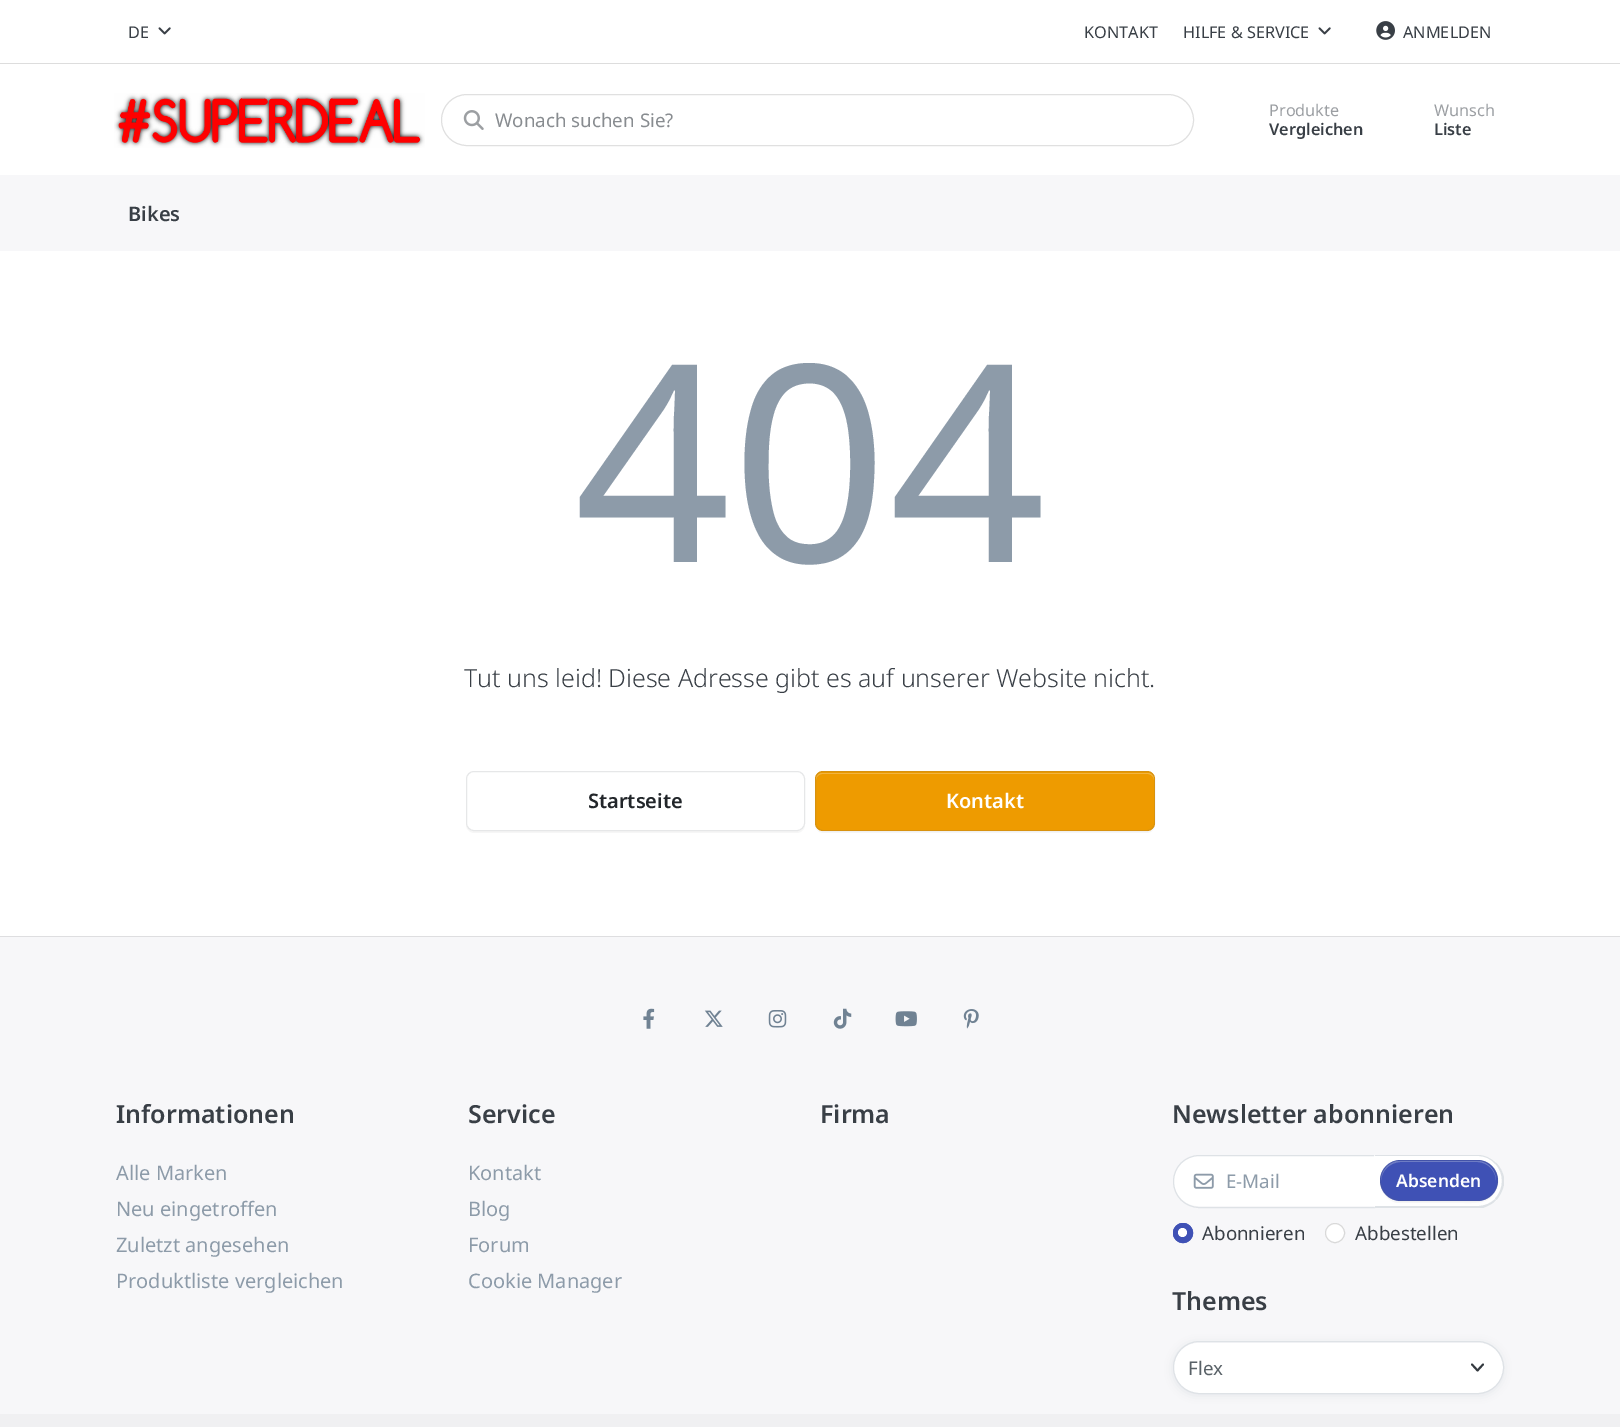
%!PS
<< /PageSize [1620 1427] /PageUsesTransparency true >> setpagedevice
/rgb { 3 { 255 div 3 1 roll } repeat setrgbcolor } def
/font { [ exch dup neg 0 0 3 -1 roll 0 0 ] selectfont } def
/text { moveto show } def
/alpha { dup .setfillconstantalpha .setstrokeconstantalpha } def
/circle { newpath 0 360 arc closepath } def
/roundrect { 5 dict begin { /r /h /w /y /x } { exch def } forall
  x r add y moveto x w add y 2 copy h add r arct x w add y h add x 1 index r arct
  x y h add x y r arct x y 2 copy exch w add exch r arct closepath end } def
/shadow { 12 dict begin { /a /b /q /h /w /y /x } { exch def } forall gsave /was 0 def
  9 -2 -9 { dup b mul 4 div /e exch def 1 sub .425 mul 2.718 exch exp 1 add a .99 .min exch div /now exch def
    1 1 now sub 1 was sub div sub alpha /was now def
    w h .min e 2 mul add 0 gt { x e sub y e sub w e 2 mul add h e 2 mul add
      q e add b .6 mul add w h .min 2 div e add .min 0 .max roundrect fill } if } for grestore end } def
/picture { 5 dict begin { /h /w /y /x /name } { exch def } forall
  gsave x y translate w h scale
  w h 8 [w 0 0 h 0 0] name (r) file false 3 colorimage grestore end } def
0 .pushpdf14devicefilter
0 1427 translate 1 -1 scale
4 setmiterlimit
255 255 255 rgb
0 0 1620 1427 rectfill
221 221 221 rgb
0 63 1620 1 rectfill
(img_01.rgb) 158 27 13 8 picture
(img_01.rgb) 1318 27 13 8 picture
(img_02.rgb) 1376 21 19 19 picture
(img_03.rgb) 114 93 311 55 picture
224 224 224 rgb
441.5 94.5 752 51 25.5 roundrect stroke
(img_04.rgb) 463 110 21 20 picture
247 247 249 rgb
0 175 1620 76 rectfill
246 246 246 rgb
466 779 moveto 0 46 rlineto 0 4 4 8 8 8 rcurveto 323 0 rlineto 4 0 8 -4 8 -8 rcurveto 0 -1 rlineto 0 4 -3 7 -7 7 rcurveto -324 0 rlineto -4 0 -8 -3 -8 -7 rcurveto closepath fill
230 231 232 rgb
466.5 771.5 338 59 7.5 roundrect stroke
246 246 246 rgb
815 824 moveto 0 1 rlineto 0 4 4 8 8 8 rcurveto 324 0 rlineto 4 0 8 -4 8 -8 rcurveto 0 -1 rlineto 0 4 -3 7 -7 7 rcurveto -326 0 rlineto -4 0 -7 -3 -7 -7 rcurveto closepath fill
238 155 0 rgb
815 771 340 60 8 roundrect fill
242 180 64 rgb
822 774 moveto 326 0 rlineto 3 0 6 3 6 6 rcurveto 0 -1 rlineto 0 -3 -3 -6 -6 -6 rcurveto -326 0 rlineto -3 0 -6 3 -6 6 rcurveto 0 1 rlineto 0 -3 3 -6 6 -6 rcurveto closepath fill
0.15 alpha
89 97 103 rgb
815.5 771.5 339 59 7.5 roundrect stroke
1 alpha
247 247 249 rgb
0 937 1620 477 rectfill
222 222 224 rgb
0 936 1620 1 rectfill
(img_05.rgb) 643 1008 12 21 picture
(img_06.rgb) 704 1010 19 17 picture
(img_07.rgb) 768 1010 19 18 picture
(img_08.rgb) 833 1008 19 21 picture
(img_09.rgb) 895 1011 22 16 picture
(img_10.rgb) 963 1009 16 20 picture
255 255 255 rgb
1199 1156 moveto 175 0 rlineto 0 50 rlineto -175 0 rlineto -14 0 -25 -11 -25 -25 rcurveto 0 -14 11 -25 25 -25 rcurveto closepath fill
222 226 230 rgb
1199.5 1155.5 moveto 175 0 rlineto 0 52 rlineto -175 0 rlineto -14.5 0 -26 -11.5 -26 -26 rcurveto 0 -14.5 11.5 -26 26 -26 rcurveto closepath stroke
(img_11.rgb) 1193 1173 21 16 picture
255 255 255 rgb
1374 1155 moveto 103.5 0 rlineto 14.5 0 26.5 12 26.5 26.5 rcurveto 0 14.5 -12 26.5 -26.5 26.5 rcurveto -103.5 0 rlineto closepath fill
222 226 230 rgb
1374 1155 moveto 1 1 rlineto 103 0 rlineto 7 0 13 3 17 8 rcurveto 1 -1 rlineto -5 -5 -11 -8 -18 -8 rcurveto closepath fill
1504 1184.5 moveto -1 6 -4 11.5 -7.5 15.5 rcurveto -1.5 -1.5 rlineto 9 -9.5 9.5 -25 0 -35 rcurveto 1 -1 rlineto 4 4 7 9.5 8 15 rcurveto closepath fill
1374 1208 moveto 1 -2 rlineto 103 0 rlineto 7 0 13 -3 17 -7 rcurveto 1 1 rlineto -3 4 -8 6 -13 8 rcurveto closepath fill
255 255 255 rgb
1374 1155 moveto 0 52 rlineto 1 -1 rlineto 0 -50 rlineto closepath fill
246 246 246 rgb
1380 1181 moveto 0 10 7 20 17 22 rcurveto 67 0 rlineto 13 0 26 1 32 -13 rcurveto 3 -5 3 -11 0 -16 rcurveto 1 2 2 4 2 7 rcurveto 0 11 -10 20 -21 20 rcurveto -76 0 rlineto -12 0 -21 -9 -21 -20 rcurveto closepath fill
63 81 181 rgb
1380 1160 118 41 20.5 roundrect fill
111 125 200 rgb
1401 1162 moveto 76 0 rlineto 11 0 19 9 19 19 rcurveto 0 -9 -6 -18 -16 -20 rcurveto -16 0 rlineto -67 0 rlineto -10 2 -16 11 -16 20 rcurveto 0 -10 9 -19 20 -19 rcurveto closepath fill
0.15 alpha
89 97 103 rgb
1380.5 1160.5 117 40 20 roundrect stroke
1 alpha
63 81 181 rgb
1183 1233 10 circle fill
255 255 255 rgb
1182.5 1232.5 4.5 circle fill
63 81 181 rgb
1183 1233 9.5 circle stroke
255 255 255 rgb
1335 1233 10 circle fill
0.15 alpha
0 0 0 rgb
1335 1233 9.5 circle stroke
gsave
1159 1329 moveto 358 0 rlineto 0 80 rlineto -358 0 rlineto closepath 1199.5 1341 moveto 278 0 rlineto 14.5 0 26.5 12 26.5 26.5 rcurveto 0 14.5 -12 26.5 -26.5 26.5 rcurveto -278 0 rlineto -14.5 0 -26.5 -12 -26.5 -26.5 rcurveto 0 -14.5 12 -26.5 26.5 -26.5 rcurveto closepath eoclip newpath
1 alpha
26 33 75 rgb
1175 1345 326 48 24 5 0.12 shadow
grestore
1 alpha
255 255 255 rgb
1174 1343 329 50 25 roundrect fill
52 58 64 rgb
1.9 setlinewidth
1 setlinecap
1 setlinejoin
1472 1364.5 moveto 5.5 6 rlineto 5.5 -6 rlineto stroke
222 226 230 rgb
1 setlinewidth
0 setlinecap
0 setlinejoin
1173.5 1341.5 330 52 26 roundrect stroke
240 240 242 rgb
0 1414 1620 13 rectfill
/NotoSans-Regular 16.25 font
57 63 70 rgb
(DE) 128 38 text
(KONTAKT) 1084 38 text
(HILFE & SERVICE) 1183 38 text
(ANMELDEN) 1403 38 text
/NotoSans-Regular 18.75 font
136 140 144 rgb
(Wonach suchen Sie?) 495 127 text
/NotoSans-Regular 16.25 font
156 159 163 rgb
(Produkte) 1269 116 text
/NotoSans-SemiBold 16.25 font
57 63 70 rgb
(Vergleichen) 1269 135 text
/NotoSans-Regular 16.25 font
156 159 163 rgb
(Wunsch) 1434 116 text
/NotoSans-SemiBold 16.25 font
57 63 70 rgb
(Liste) 1434 135 text
/NotoSans-SemiBold 20 font
(Bikes) 128 221 text
/NotoSans-Regular 275 font
141 155 169 rgb
(404) 574 562 text
/NotoSans-Light 25 font
57 63 70 rgb
(Tut uns leid! Diese Adresse gibt es auf unserer Website nicht.) 464 687 text
/NotoSans-SemiBold 20 font
34 38 42 rgb
(Startseite) 588 808 text
255 255 255 rgb
(Kontakt) 946 808 text
/NotoSans-SemiBold 25 font
57 63 70 rgb
(Informationen) 116 1123 text
/NotoSans-Regular 20 font
141 155 169 rgb
(Alle Marken) 116 1180 text
(Neu eingetroffen) 116 1216 text
(Zuletzt angesehen) 116 1252 text
(Produktliste vergleichen) 116 1288 text
/NotoSans-SemiBold 25 font
57 63 70 rgb
(Service) 468 1123 text
/NotoSans-Regular 20 font
141 155 169 rgb
(Kontakt) 468 1180 text
(Blog) 468 1216 text
(Forum) 468 1252 text
(Cookie Manager) 468 1288 text
/NotoSans-SemiBold 25 font
57 63 70 rgb
(Firma) 820 1123 text
(Newsletter abonnieren) 1172 1123 text
/NotoSans-Regular 18.75 font
141 155 169 rgb
(E-Mail) 1226 1188 text
/NotoSans-SemiBold 17.5 font
255 255 255 rgb
(Absenden) 1396 1187 text
/NotoSans-Regular 18.75 font
57 63 70 rgb
(Abonnieren) 1202 1240 text
(Abbestellen) 1355 1240 text
/NotoSans-SemiBold 25 font
(Themes) 1172 1310 text
/NotoSans-Regular 18.75 font
89 97 103 rgb
(Flex) 1188 1375 text
.poppdf14devicefilter showpage
